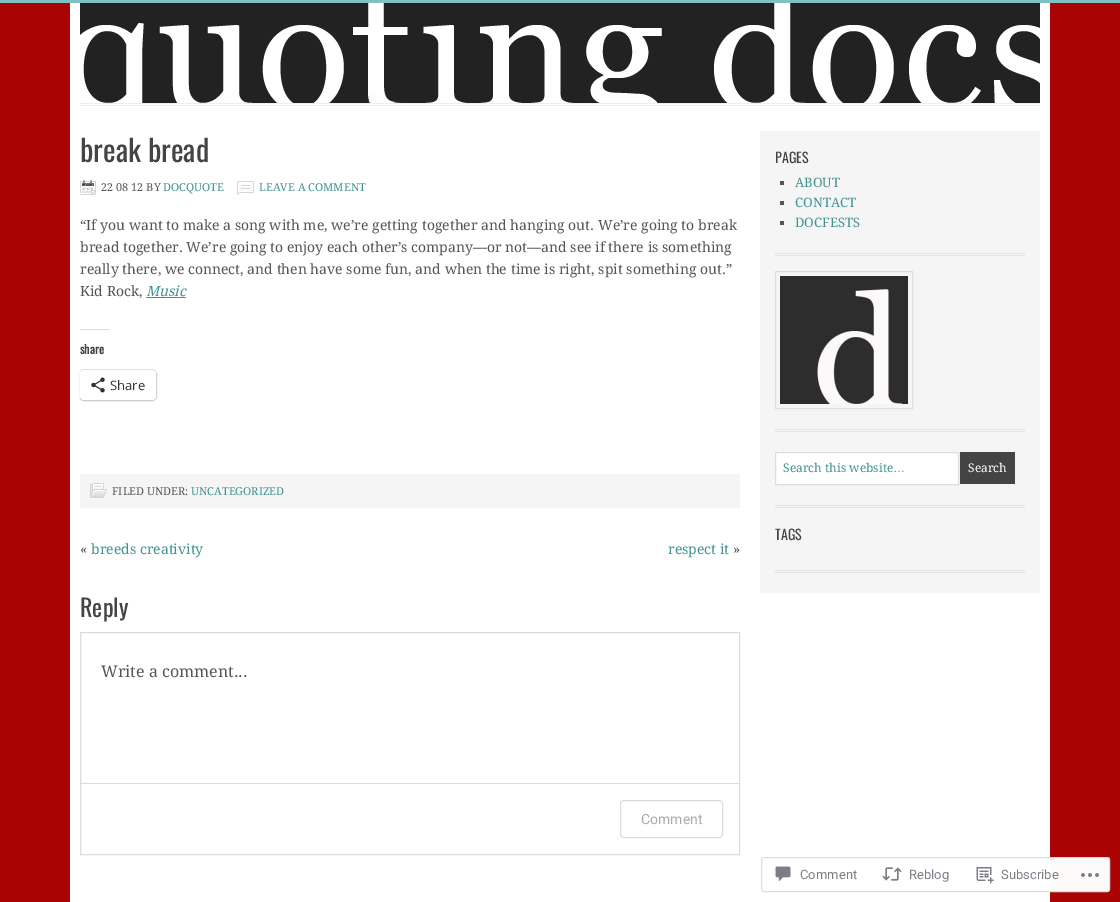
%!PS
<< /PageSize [1120 902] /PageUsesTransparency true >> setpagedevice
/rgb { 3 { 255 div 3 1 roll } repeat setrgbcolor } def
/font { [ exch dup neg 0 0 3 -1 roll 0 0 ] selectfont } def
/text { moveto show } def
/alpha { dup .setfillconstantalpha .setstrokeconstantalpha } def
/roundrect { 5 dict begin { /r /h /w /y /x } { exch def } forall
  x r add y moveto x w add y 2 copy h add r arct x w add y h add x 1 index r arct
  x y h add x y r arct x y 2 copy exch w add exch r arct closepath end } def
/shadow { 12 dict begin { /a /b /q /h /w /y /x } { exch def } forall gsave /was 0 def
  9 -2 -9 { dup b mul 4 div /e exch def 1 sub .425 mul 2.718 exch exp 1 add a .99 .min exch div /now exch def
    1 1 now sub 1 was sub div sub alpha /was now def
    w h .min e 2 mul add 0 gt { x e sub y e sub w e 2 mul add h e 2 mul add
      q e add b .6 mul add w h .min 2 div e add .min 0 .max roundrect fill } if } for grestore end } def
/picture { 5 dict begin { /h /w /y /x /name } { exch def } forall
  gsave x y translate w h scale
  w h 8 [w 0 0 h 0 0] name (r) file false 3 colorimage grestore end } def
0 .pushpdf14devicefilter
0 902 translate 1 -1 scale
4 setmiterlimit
169 3 3 rgb
0 0 1120 902 rectfill
127 194 193 rgb
0 0 1120 3 rectfill
255 255 255 rgb
70 3 980 899 rectfill
(img_01.rgb) 80 3 960 100 picture
238 238 238 rgb
80 103 960 1 rectfill
80 105 960 1 rectfill
(img_02.rgb) 80 180 16 15 picture
(img_03.rgb) 237 181 17 14 picture
63 146 145 rgb
146 297 40 1 rectfill
220 220 222 rgb
80 329 30 1 rectfill
gsave
80 131 660 377 rectclip
224 224 224 rgb
79.5 369.5 77 31 4.5 roundrect stroke
grestore
0 0 0 rgb
80 371 76 30 4 1 0.12 shadow
255 255 255 rgb
80 370 76 30 4 roundrect fill
(img_04.rgb) 91 377 14 16 picture
245 245 245 rgb
80 474 660 34 rectfill
(img_05.rgb) 90 483 17 15 picture
220 220 222 rgb
80.5 632.5 659 222 rectstroke
81 783 658 1 rectfill
620.5 800.5 102 37 3.5 roundrect stroke
245 245 245 rgb
760 131 280 462 rectfill
229 229 229 rgb
775 253 250 1 rectfill
775 255 250 1 rectfill
85 85 85 rgb
780 181 4 4 rectfill
780 201 4 4 rectfill
780 221 4 4 rectfill
229 229 229 rgb
775 429 250 1 rectfill
775 431 250 1 rectfill
221 221 221 rgb
775.5 271.5 137 137 rectstroke
(img_06.rgb) 780 276 128 128 picture
229 229 229 rgb
775 505 250 1 rectfill
775 507 250 1 rectfill
255 255 255 rgb
775.5 452.5 moveto 183 0 rlineto 0 32 rlineto -183 0 rlineto closepath gsave fill grestore
221 221 221 rgb
stroke
68 68 68 rgb
960 452 55 32 rectfill
229 229 229 rgb
775 570 250 1 rectfill
775 572 250 1 rectfill
0.98 alpha
255 255 255 rgb
761 857 349 35 3 roundrect fill
220 220 222 rgb
761.5 857.5 348 34 2.5 roundrect stroke
1 alpha
(img_07.rgb) 775 866 16 16 picture
(img_08.rgb) 882 867 20 14 picture
(img_09.rgb) 976 867 18 17 picture
(img_10.rgb) 1081 873 18 4 picture
/Oswald-Regular 30 font
68 68 68 rgb
(break bread) 80 162 text
/DroidSerif-Regular 11 font
85 85 85 rgb
(22 08 12 BY) 101 191 text
63 146 145 rgb
(DOCQUOTE) 163 191 text
(LEAVE A COMMENT) 259 191 text
/DroidSerif-Regular 14 font
85 85 85 rgb
(“If you want to make a song with me, we’re getting together and hanging out. We’re going to break) 80 230 text
(bread together. We’re going to enjoy each other’s company—or not—and see if there is something) 80 252 text
(really there, we connect, and then have some fun, and when the time is right, spit something out.”) 80 274 text
(Kid Rock,) 80 296 text
/DroidSerif-Italic 14 font
63 146 145 rgb
(Music) 146 296 text
/Oswald-Bold 12 font
68 68 68 rgb
(share) 80 354 text
/OpenSans-Regular 13 font
44 51 56 rgb
(Share) 110 390 text
/DroidSerif-Regular 11 font
85 85 85 rgb
(FILED UNDER:) 112 495 text
63 146 145 rgb
(UNCATEGORIZED) 191 495 text
/DroidSerif-Regular 14 font
85 85 85 rgb
(«) 80 554 text
63 146 145 rgb
(breeds creativity) 91 554 text
(respect it) 668 554 text
85 85 85 rgb
(») 733 554 text
/Oswald-Regular 24 font
68 68 68 rgb
(Reply) 80 617 text
/DroidSerif-Regular 16 font
85 85 85 rgb
(Write a comment...) 101 677 text
/Roboto-Regular 14 font
167 170 173 rgb
(Comment) 641 824 text
/Oswald-Regular 14 font
68 68 68 rgb
(PAGES) 775 163 text
/DroidSerif-Regular 13 font
63 146 145 rgb
(ABOUT) 795 187 text
(CONTACT) 795 207 text
(DOCFESTS) 795 227 text
/DroidSerif-Regular 12 font
(Search this website) 783 472 text
/LiberationSans-Regular 12 font
(…) 893 472 text
/DroidSerif-Regular 12 font
255 255 255 rgb
(Search) 968 472 text
/Oswald-Regular 14 font
68 68 68 rgb
(TAGS) 775 540 text
/Roboto-Regular 13 font
123 127 133 rgb
(Comment) 800 879 text
(Reblog) 909 879 text
(Subscribe) 1001 879 text
.poppdf14devicefilter showpage
